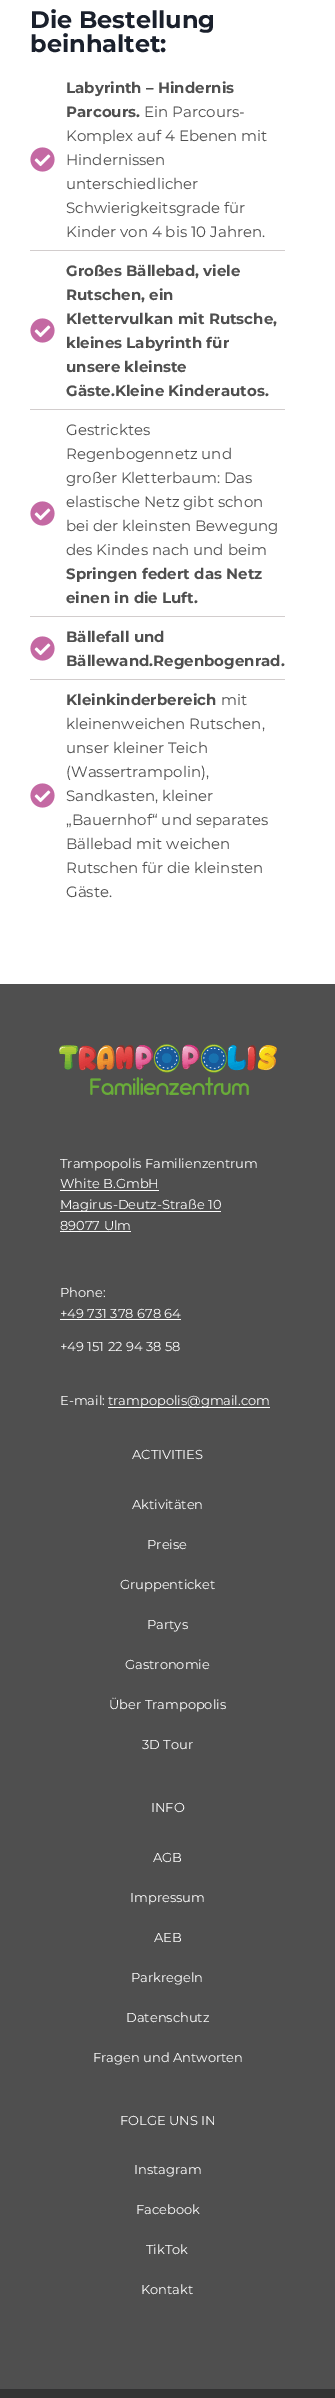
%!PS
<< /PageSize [335 2398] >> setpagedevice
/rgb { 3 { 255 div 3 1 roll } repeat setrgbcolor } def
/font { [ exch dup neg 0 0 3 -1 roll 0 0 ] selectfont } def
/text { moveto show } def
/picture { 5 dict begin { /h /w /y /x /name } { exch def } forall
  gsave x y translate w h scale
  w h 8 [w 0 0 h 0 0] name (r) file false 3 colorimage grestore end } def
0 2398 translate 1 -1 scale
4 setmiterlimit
255 255 255 rgb
0 0 335 2398 rectfill
(img_01.rgb) 30 147 25 25 picture
210 205 205 rgb
30 250 255 1 rectfill
(img_01.rgb) 30 318 25 25 picture
30 409 255 1 rectfill
(img_01.rgb) 30 501 25 25 picture
30 616 255 1 rectfill
(img_01.rgb) 30 636 25 25 picture
30 679 255 1 rectfill
(img_01.rgb) 30 783 25 25 picture
79 79 79 rgb
0 984 335 1405 rectfill
(img_02.rgb) 59 1044 218 51 picture
255 255 255 rgb
60 1190 99 1 rectfill
60 1211 161 1 rectfill
60 1231 71 1 rectfill
60 1319 121 1 rectfill
108 1407 162 1 rectfill
51 51 51 rgb
0 2389 335 9 rectfill
/Montserrat-Bold 24 font
26 32 44 rgb
(Die Bestellung) 30 28 text
(beinhaltet:) 30 52 text
/Montserrat-Bold 15 font
79 79 79 rgb
(Labyrinth – Hindernis) 66 93 text
(Parcours.) 66 117 text
/Montserrat-Regular 15 font
(Ein Parcours-) 144 117 text
(Komplex auf 4 Ebenen mit) 66 141 text
(Hindernissen) 66 165 text
(unterschiedlicher) 66 189 text
(Schwierigkeitsgrade für) 66 213 text
(Kinder von 4 bis 10 Jahren.) 66 237 text
/Montserrat-Bold 15 font
(Großes Bällebad, viele) 66 276 text
(Rutschen, ein) 66 300 text
(Klettervulkan mit Rutsche,) 66 324 text
(kleines Labyrinth für) 66 348 text
(unsere kleinste) 66 372 text
(Gäste.Kleine Kinderautos.) 66 396 text
/Montserrat-Regular 15 font
(Gestricktes) 66 435 text
(Regenbogennetz und) 66 459 text
(großer Kletterbaum: Das) 66 483 text
(elastische Netz gibt schon) 66 507 text
(bei der kleinsten Bewegung) 66 531 text
(des Kindes nach und beim) 66 555 text
/Montserrat-Bold 15 font
(Springen federt das Netz) 66 579 text
(einen in die Luft.) 66 603 text
(Bällefall und) 66 642 text
(Bällewand.Regenbogenrad.) 66 666 text
(Kleinkinderbereich) 66 705 text
/Montserrat-Regular 15 font
(mit) 221 705 text
(kleinenweichen Rutschen,) 66 729 text
(unser kleiner Teich) 66 753 text
(\(Wassertrampolin\),) 66 777 text
(Sandkasten, kleiner) 66 801 text
(„Bauernhof“ und separates) 66 825 text
(Bällebad mit weichen) 66 849 text
(Rutschen für die kleinsten) 66 873 text
(Gäste.) 66 897 text
/Montserrat-Regular 13 font
255 255 255 rgb
(Trampopolis Familienzentrum) 60 1168 text
(White B.GmbH) 60 1188 text
(Magirus-Deutz-Straße 10) 60 1209 text
(89077 Ulm) 60 1230 text
(Phone:) 60 1297 text
(+49 731 378 678 64) 60 1318 text
(+49 151 22 94 38 58) 60 1351 text
(E-mail:) 60 1405 text
(trampopolis@gmail.com) 108 1405 text
(ACTIVITIES) 132 1459 text
(Aktivitäten) 132 1509 text
(Preise) 147 1549 text
(Gruppenticket) 120 1589 text
(Partys) 147 1629 text
(Gastronomie) 125 1669 text
(Über Trampopolis) 109 1709 text
(3D Tour) 142 1749 text
(INFO) 151 1812 text
(AGB) 153 1862 text
(Impressum) 130 1902 text
(AEB) 154 1942 text
(Parkregeln) 131 1982 text
(Datenschutz) 126 2022 text
(Fragen und Antworten) 93 2062 text
(FOLGE UNS IN) 120 2125 text
(Instagram) 134 2174 text
(Facebook) 136 2214 text
(TikTok) 146 2254 text
(Kontakt) 141 2294 text
showpage
